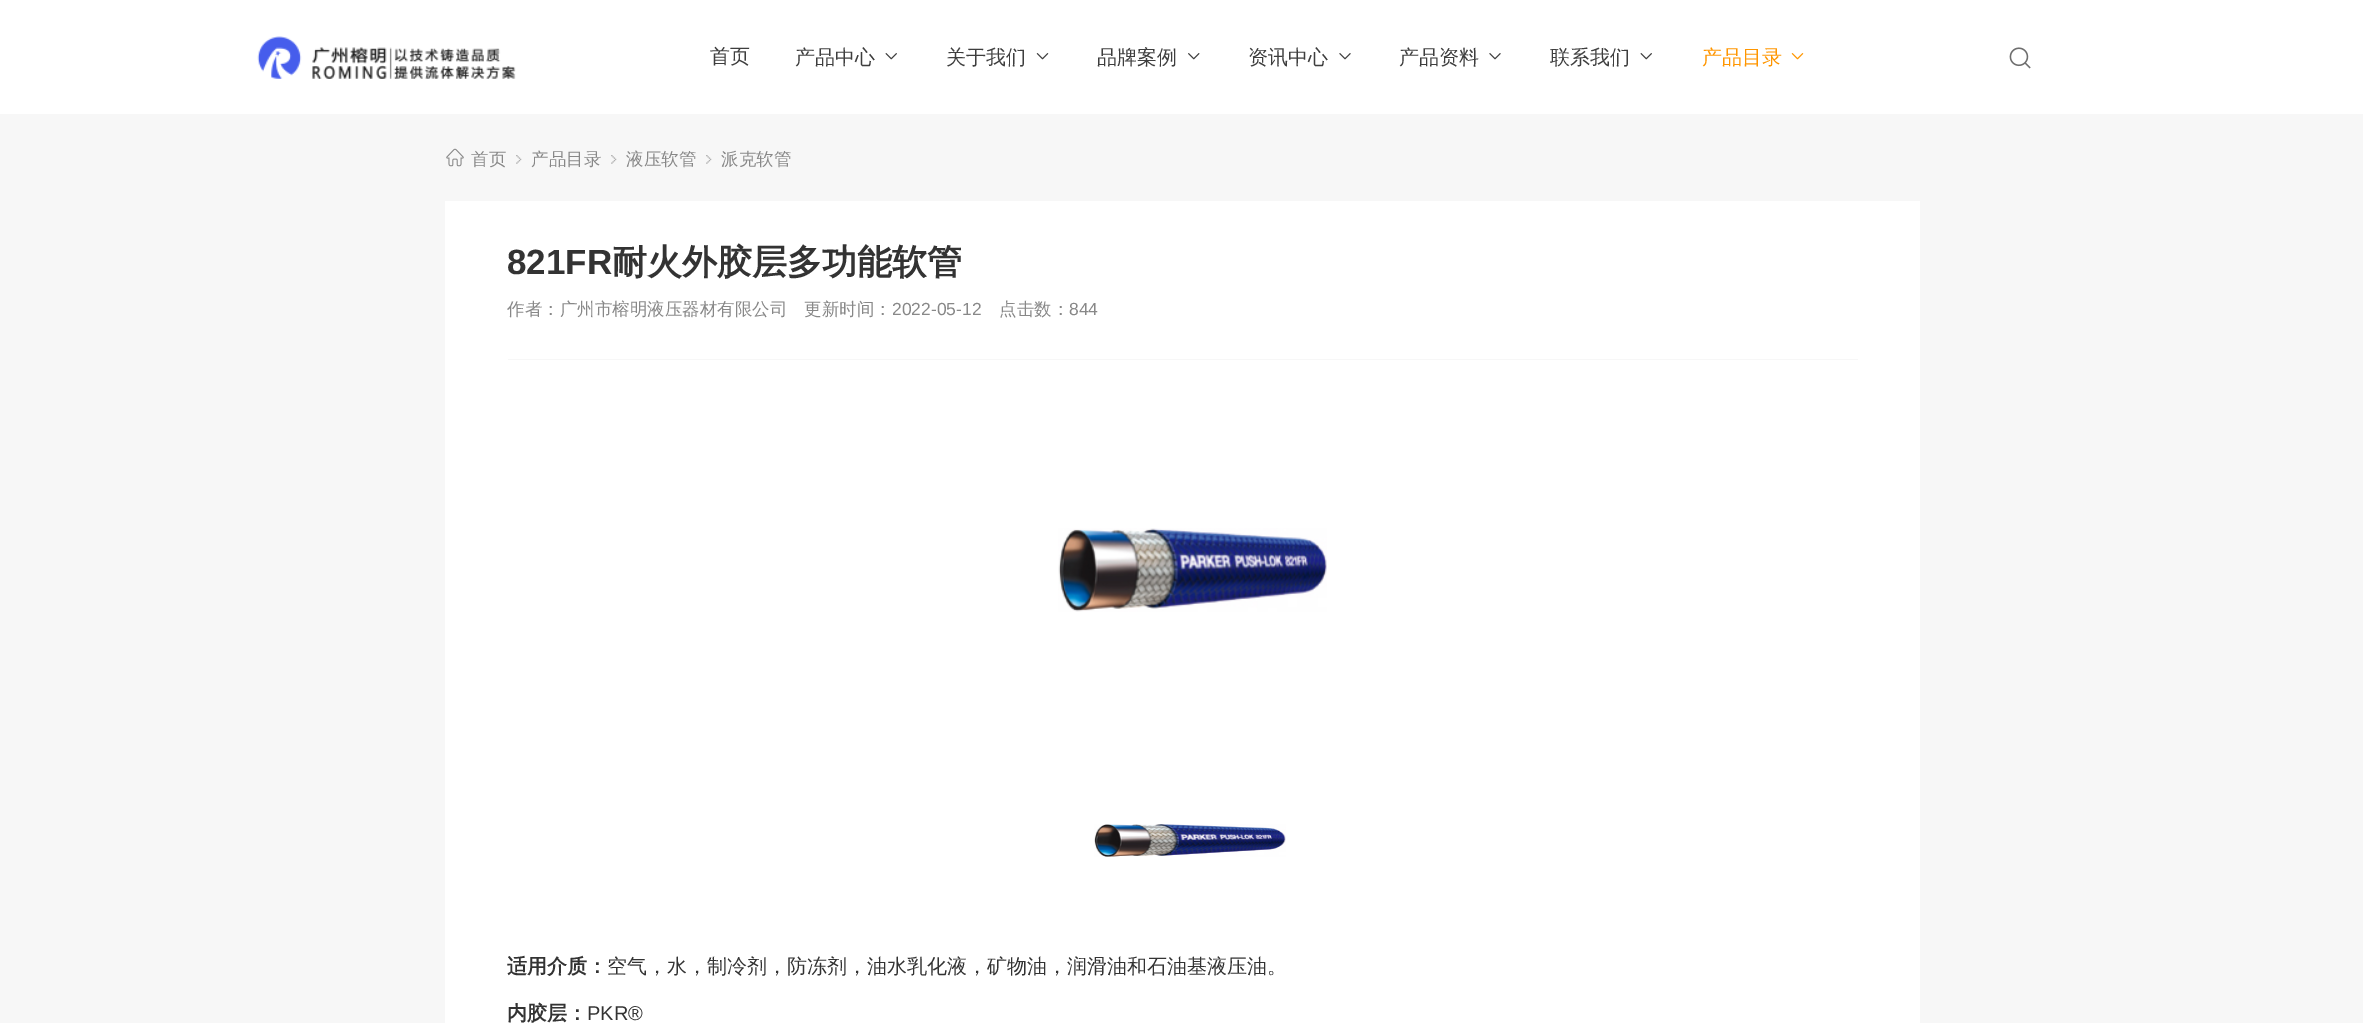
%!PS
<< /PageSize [2363 1023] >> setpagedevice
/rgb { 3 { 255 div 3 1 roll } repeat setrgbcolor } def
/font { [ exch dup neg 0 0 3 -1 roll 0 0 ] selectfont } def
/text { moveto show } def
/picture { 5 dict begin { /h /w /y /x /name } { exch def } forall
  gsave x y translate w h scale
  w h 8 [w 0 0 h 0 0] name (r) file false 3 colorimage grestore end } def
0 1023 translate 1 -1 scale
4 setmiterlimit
247 247 247 rgb
0 0 2363 1023 rectfill
255 255 255 rgb
0 0 2363 114 rectfill
(img_01.rgb) 257 36 259 43 picture
(img_02.rgb) 885 53 12 7 picture
(img_03.rgb) 1036 53 13 7 picture
(img_04.rgb) 1188 53 12 7 picture
(img_05.rgb) 1339 53 12 7 picture
(img_05.rgb) 1489 53 12 7 picture
(img_02.rgb) 1640 53 12 7 picture
(img_06.rgb) 1791 53 13 7 picture
(img_07.rgb) 2009 47 22 22 picture
(img_08.rgb) 446 148 18 19 picture
(img_09.rgb) 516 155 6 9 picture
(img_09.rgb) 611 155 6 9 picture
(img_09.rgb) 706 155 6 9 picture
445 201 1475 822 rectfill
247 247 247 rgb
508 359 1350 1 rectfill
(img_10.rgb) 1058 528 269 84 picture
(img_11.rgb) 1094 824 192 33 picture
/WenQuanYiZenHei-Medium 20 font
62 62 62 rgb
(首页) 710 63 text
(产品中心) 795 64 text
(关于我们) 946 64 text
(品牌案例) 1097 64 text
(资讯中心) 1248 64 text
(产品资料) 1399 64 text
(联系我们) 1550 64 text
255 150 0 rgb
(产品目录) 1702 64 text
/WenQuanYiZenHei-Medium 17.5 font
136 136 136 rgb
(首页) 471 165 text
(产品目录) 531 165 text
(液压软管) 626 165 text
(派克软管) 721 165 text
/LiberationSans-Bold 35 font
51 51 51 rgb
(821FR) 507 274 text
/WenQuanYiZenHei-Bold 35 font
(耐火外胶层多功能软管) 612 274 text
/WenQuanYiZenHei-Medium 17.5 font
136 136 136 rgb
(作者：广州市榕明液压器材有限公司) 507 315 text
(更新时间：) 804 315 text
/LiberationSans-Regular 17.5 font
(2022-05-12) 892 315 text
/WenQuanYiZenHei-Medium 17.5 font
(点击数：) 999 315 text
/LiberationSans-Regular 17.5 font
(844) 1069 315 text
/WenQuanYiZenHei-Bold 20 font
51 51 51 rgb
(适用介质：) 507 973 text
/WenQuanYiZenHei-Medium 20 font
(空气，水，制冷剂，防冻剂，油水乳化液，矿物油，润滑油和石油基液压油。) 607 973 text
/WenQuanYiZenHei-Bold 20 font
(内胶层：) 507 1020 text
/LiberationSans-Regular 20 font
(PKR®) 587 1020 text
showpage
